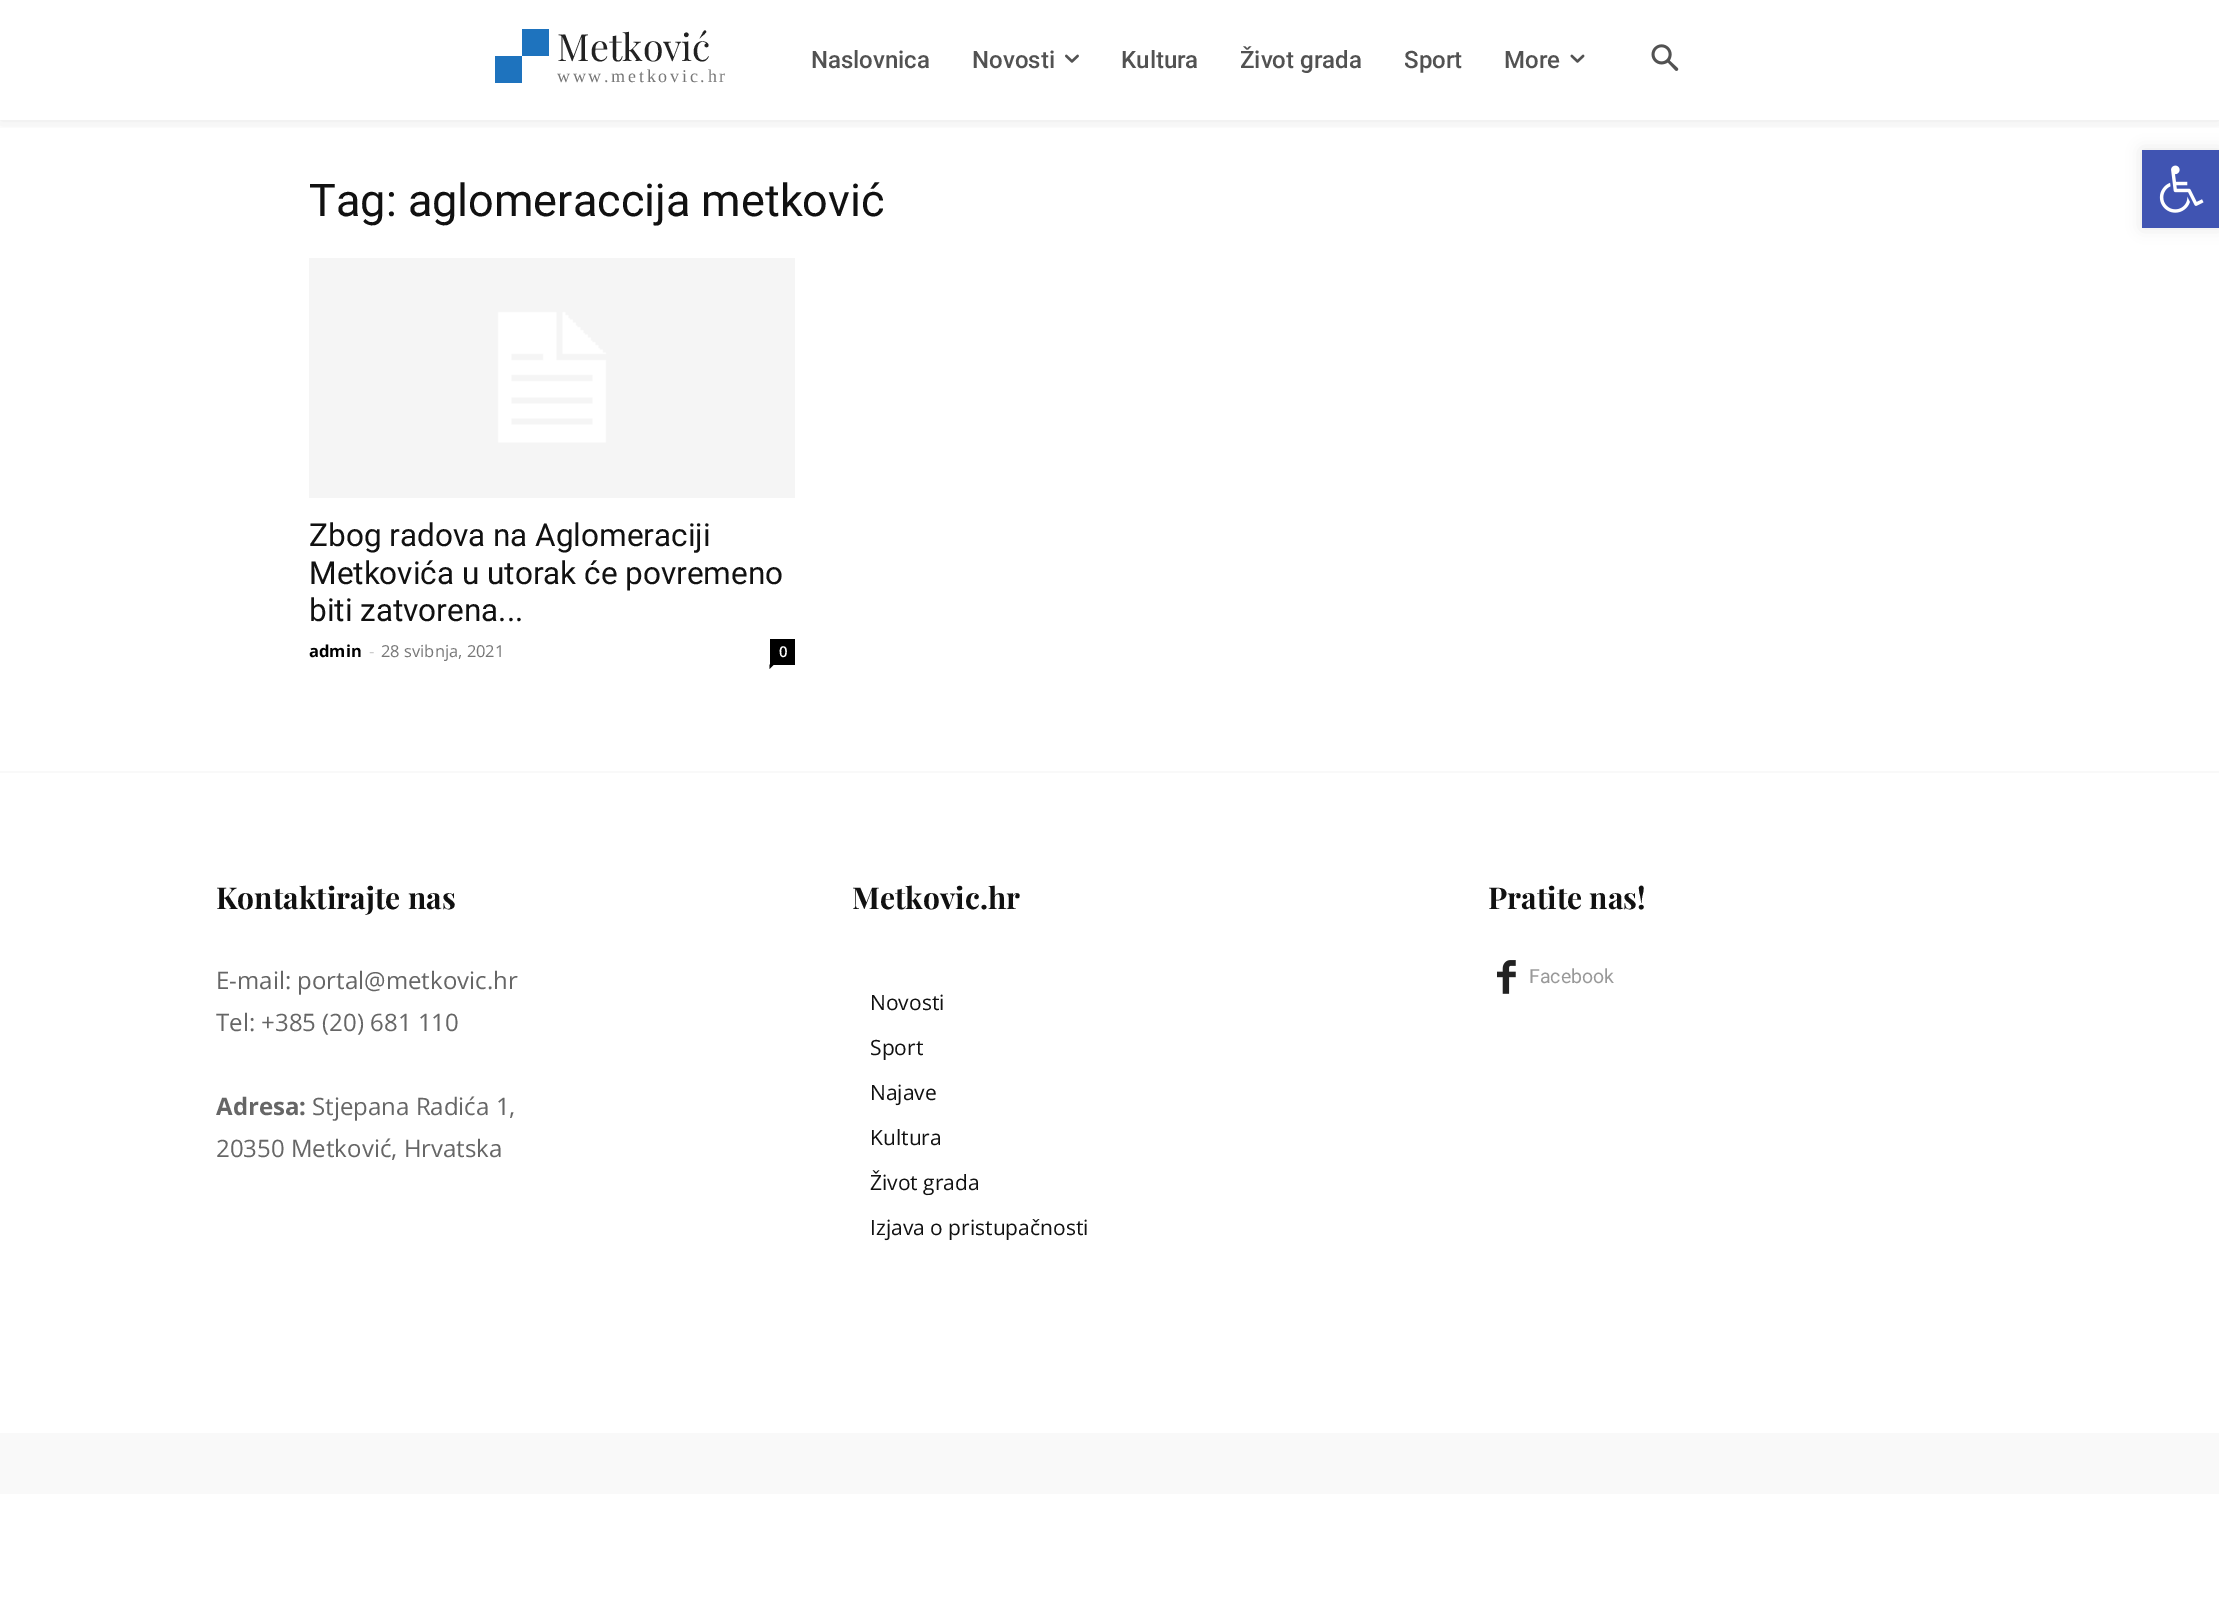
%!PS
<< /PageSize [2219 1617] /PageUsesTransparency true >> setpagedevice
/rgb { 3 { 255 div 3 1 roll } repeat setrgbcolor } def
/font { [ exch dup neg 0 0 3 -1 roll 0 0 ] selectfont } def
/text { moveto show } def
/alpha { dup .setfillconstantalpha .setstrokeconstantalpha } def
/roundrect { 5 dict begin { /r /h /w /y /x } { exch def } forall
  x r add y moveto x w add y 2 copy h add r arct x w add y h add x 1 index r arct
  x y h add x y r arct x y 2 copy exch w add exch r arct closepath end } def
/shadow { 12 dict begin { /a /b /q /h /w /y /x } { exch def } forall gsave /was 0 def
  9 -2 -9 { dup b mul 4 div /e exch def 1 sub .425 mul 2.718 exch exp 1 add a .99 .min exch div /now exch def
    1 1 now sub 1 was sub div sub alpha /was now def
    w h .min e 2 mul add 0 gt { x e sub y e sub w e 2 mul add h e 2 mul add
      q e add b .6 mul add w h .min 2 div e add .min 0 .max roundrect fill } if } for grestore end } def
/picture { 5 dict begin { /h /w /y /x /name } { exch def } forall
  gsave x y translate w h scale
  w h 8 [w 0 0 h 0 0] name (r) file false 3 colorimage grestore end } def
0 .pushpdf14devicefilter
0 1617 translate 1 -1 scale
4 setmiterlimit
255 255 255 rgb
0 0 2219 1617 rectfill
gsave
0 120 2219 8 rectclip
0 0 0 rgb
0 0 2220 120 0 9 0.1 shadow
grestore
30 115 190 rgb
495 83 moveto 0 -27 rlineto 27 0 rlineto 0 27 rlineto closepath 522 56 moveto 0 -27 rlineto 27 0 rlineto 0 27 rlineto closepath fill
(img_01.rgb) 1065 54 14 9 picture
(img_02.rgb) 1570 54 15 9 picture
(img_03.rgb) 1651 44 28 27 picture
(img_04.rgb) 309 258 486 240 picture
0 0 0 rgb
770 639 25 26 rectfill
769.5 664.5 moveto 4.5 0 rlineto -4.5 4.5 rlineto closepath fill
249 249 249 rgb
0 771 2219 2 rectfill
(img_05.rgb) 1497 960 19 34 picture
0 1433 2219 61 rectfill
0 0 0 rgb
2142 150 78 78 0 7.5 0.1 shadow
64 84 178 rgb
2142 150 77 78 rectfill
(img_06.rgb) 2159 165 45 48 picture
/PlayfairDisplay-Regular 37.5 font
34 34 34 rgb
(Metković) 557 61 text
/LiberationSerif-Regular 18 font
118 118 118 rgb
557 82 moveto 2.75 0 (www.metkovic.hr) ashow
/Roboto-Medium 24 font
82 82 82 rgb
(Naslovnica) 811 68 text
(Novosti) 972 68 text
(Kultura) 1121 68 text
(Život grada) 1240 68 text
(Sport) 1404 68 text
(More) 1504 68 text
/Roboto-Regular 45 font
17 17 17 rgb
(Tag: aglomeraccija metković) 309 216 text
/Roboto-Regular 31.5 font
(Zbog radova na Aglomeraciji) 309 546 text
(Metkovića u utorak će povremeno) 309 584 text
(biti zatvorena...) 309 621 text
/OpenSans-Bold 16.5 font
0 0 0 rgb
(admin) 309 657 text
/OpenSans-Regular 16.5 font
204 204 204 rgb
(-) 369 657 text
118 118 118 rgb
(28 svibnja, 2021) 381 657 text
/OpenSans-SemiBold 15 font
255 255 255 rgb
(0) 779 657 text
/PlayfairDisplay-Bold 30 font
17 17 17 rgb
(Kontaktirajte nas) 216 909 text
/OpenSans-Regular 24 font
102 102 102 rgb
(E-mail: portal@metkovic.hr) 216 989 text
(Tel: +385 \(20\) 681 110) 216 1031 text
/OpenSans-Bold 24 font
(Adresa:) 216 1115 text
/OpenSans-Regular 24 font
(Stjepana Radića 1,) 312 1115 text
(20350 Metković, Hrvatska) 216 1157 text
/PlayfairDisplay-Bold 30 font
17 17 17 rgb
(Metkovic.hr) 852 909 text
/OpenSans-Regular 21 font
(Novosti) 870 1010 text
(Sport) 870 1055 text
(Najave) 870 1100 text
(Kultura) 870 1145 text
(Život grada) 870 1190 text
(Izjava o pristupačnosti) 870 1235 text
/PlayfairDisplay-Bold 30 font
(Pratite nas!) 1488 909 text
/Roboto-Regular 19.5 font
153 153 153 rgb
(Facebook) 1529 983 text
.poppdf14devicefilter showpage
